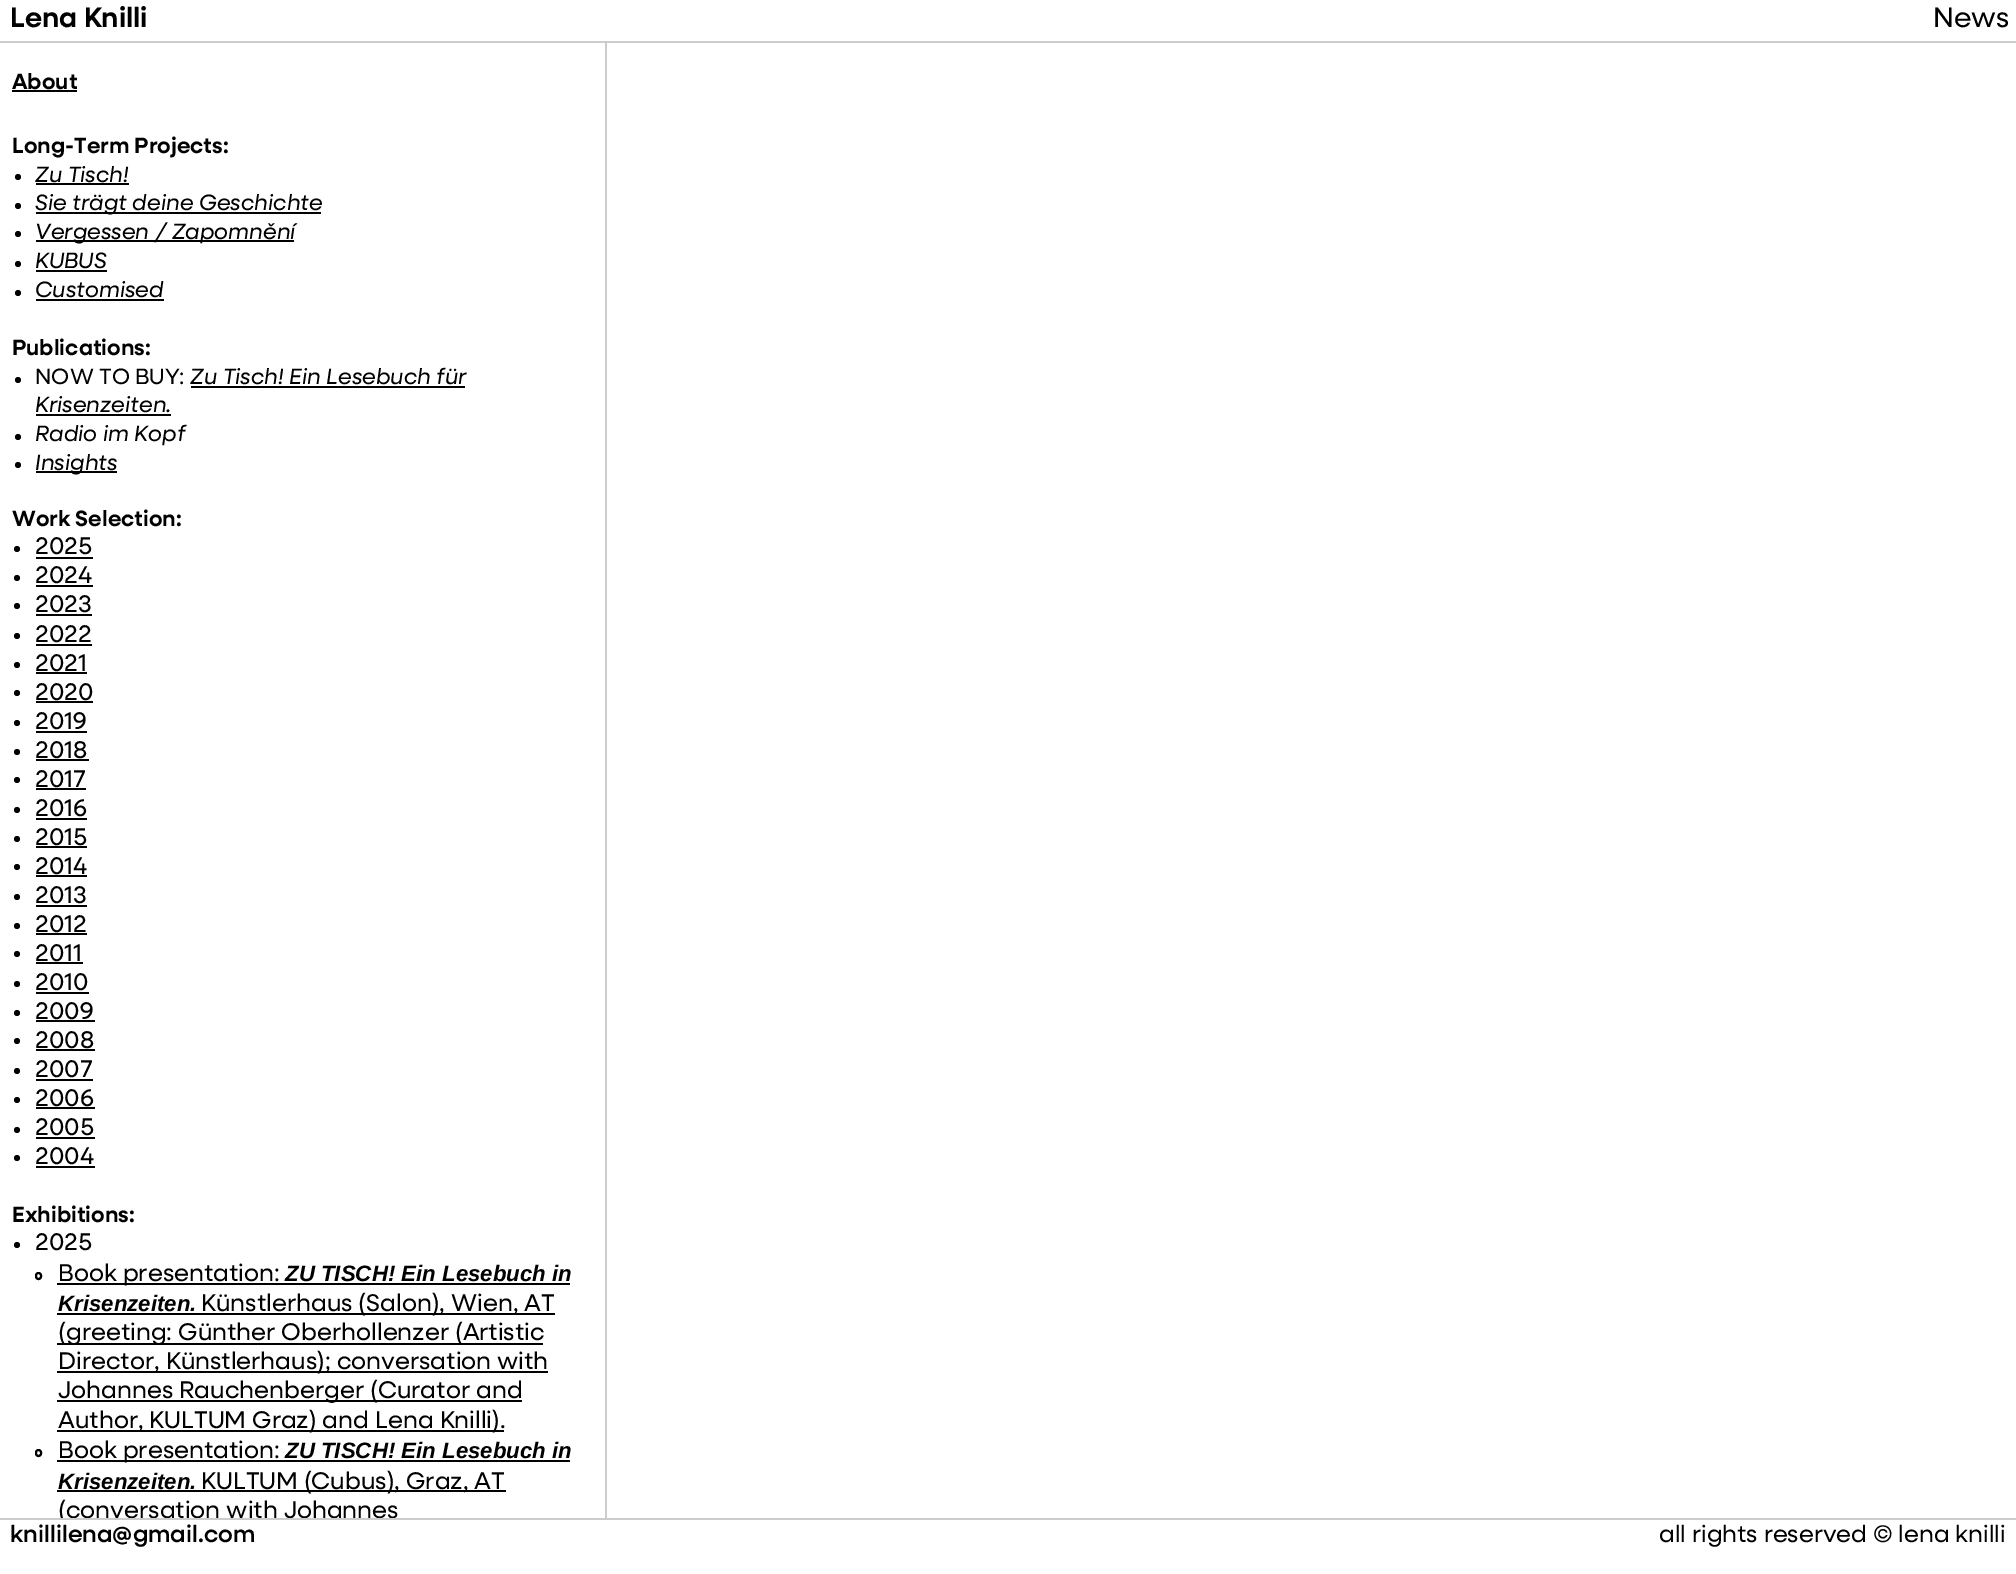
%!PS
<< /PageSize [2016 1574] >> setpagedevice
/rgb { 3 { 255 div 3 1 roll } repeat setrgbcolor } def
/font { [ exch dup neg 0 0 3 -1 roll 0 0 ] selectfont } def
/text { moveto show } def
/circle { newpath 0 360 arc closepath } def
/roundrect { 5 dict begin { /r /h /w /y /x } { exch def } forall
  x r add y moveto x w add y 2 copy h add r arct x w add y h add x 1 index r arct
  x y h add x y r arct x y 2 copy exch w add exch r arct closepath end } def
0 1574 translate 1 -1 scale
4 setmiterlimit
255 255 255 rgb
0 0 2016 1574 rectfill
204 204 204 rgb
0 41 2016 2 rectfill
605 43 2 1475 rectfill
0 0 0 rgb
12 90 65 2 rectfill
18 177 3 circle fill
36 183 93 2 rectfill
18 206 3 circle fill
36 212 285 2 rectfill
18 234 3 circle fill
36 240 258 2 rectfill
18 264 3 circle fill
36 270 71 2 rectfill
18 293 3 circle fill
36 299 128 2 rectfill
18 380 3 circle fill
191 386 274 2 rectfill
36 414 135 2 rectfill
18 437 3 circle fill
18 465 3 circle fill
36 471 81 2 rectfill
17 549 3 circle fill
36 557 57 2 rectfill
17 578 3 circle fill
36 585 57 2 rectfill
17 606 3 circle fill
36 614 56 2 rectfill
17 636 3 circle fill
36 644 56 2 rectfill
17 665 3 circle fill
36 672 51 2 rectfill
17 693 3 circle fill
36 701 57 2 rectfill
17 723 3 circle fill
36 731 51 2 rectfill
17 752 3 circle fill
36 759 53 2 rectfill
17 780 3 circle fill
36 788 50 2 rectfill
17 810 3 circle fill
36 818 51 2 rectfill
17 839 3 circle fill
36 846 51 2 rectfill
17 867 3 circle fill
36 875 51 2 rectfill
17 897 3 circle fill
36 905 51 2 rectfill
17 926 3 circle fill
36 933 51 2 rectfill
17 954 3 circle fill
36 962 47 2 rectfill
17 984 3 circle fill
36 992 53 2 rectfill
17 1013 3 circle fill
36 1020 59 2 rectfill
17 1041 3 circle fill
36 1049 59 2 rectfill
17 1071 3 circle fill
36 1079 57 2 rectfill
17 1100 3 circle fill
36 1107 59 2 rectfill
17 1130 3 circle fill
36 1137 59 2 rectfill
17 1158 3 circle fill
36 1166 59 2 rectfill
17 1245 3 circle fill
2 setlinewidth
36 1273 5 6 2.5 roundrect stroke
57 1283 513 2 rectfill
57 1313 498 2 rectfill
57 1343 486 2 rectfill
57 1371 491 2 rectfill
57 1400 465 2 rectfill
57 1430 447 2 rectfill
36 1450 5 6 2.5 roundrect stroke
57 1460 513 2 rectfill
57 1490 449 2 rectfill
/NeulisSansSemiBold-SemiBold 28.25 font
(Lena Knilli) 10 27 text
/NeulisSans-Regular 28.25 font
(News) 1933 27 text
/NeulisSansSemiBold-SemiBold 22.25 font
(About) 12 89 text
(Long-Term Projects:) 12 153 text
/NeulisSans-Italic 22.25 font
(Zu Tisch!) 35 182 text
(Sie trägt deine Geschichte) 35 210 text
(Vergessen / Zapomnění) 35 239 text
(KUBUS) 35 268 text
(Customised) 35 297 text
/NeulisSansSemiBold-SemiBold 22.25 font
(Publications:) 12 355 text
/NeulisSans-Regular 22.25 font
(NOW TO BUY:) 35 384 text
/NeulisSans-Italic 22.25 font
(Zu Tisch! Ein Lesebuch für) 190 384 text
(Krisenzeiten.) 35 412 text
(Radio im Kopf) 35 441 text
(Insights) 35 470 text
/NeulisSansSemiBold-SemiBold 22.25 font
(Work Selection:) 12 526 text
/NeulisSans-Regular 24.2 font
(2025) 35 554 text
(2024) 35 583 text
(2023) 35 612 text
(2022) 35 642 text
(2021) 35 671 text
(2020) 35 700 text
(2019) 35 729 text
(2018) 35 758 text
(2017) 35 787 text
(2016) 35 816 text
(2015) 35 845 text
(2014) 35 874 text
(2013) 35 903 text
(2012) 35 932 text
(2011) 35 961 text
(2010) 35 990 text
(2009) 35 1019 text
(2008) 35 1048 text
(2007) 35 1077 text
(2006) 35 1106 text
(2005) 35 1135 text
(2004) 35 1164 text
/NeulisSansSemiBold-SemiBold 22.25 font
(Exhibitions:) 12 1222 text
/NeulisSans-Regular 24.2 font
(2025) 35 1250 text
(Book presentation:) 58 1281 text
/LiberationSans-BoldItalic 22.25 font
(ZU TISCH! Ein Lesebuch in) 285 1281 text
(Krisenzeiten.) 58 1311 text
/NeulisSans-Regular 24.2 font
(Künstlerhaus \(Salon\), Wien, AT) 201 1311 text
(\(greeting: Günther Oberhollenzer \(Artistic) 58 1340 text
(Director, Künstlerhaus\); conversation with) 58 1369 text
(Johannes Rauchenberger \(Curator and) 58 1398 text
(Author, KULTUM Graz\) and Lena Knilli\).) 58 1428 text
(Book presentation:) 58 1458 text
/LiberationSans-BoldItalic 22.25 font
(ZU TISCH! Ein Lesebuch in) 285 1458 text
(Krisenzeiten.) 58 1489 text
/NeulisSans-Regular 24.2 font
(KULTUM \(Cubus\), Graz, AT) 201 1489 text
(\(conversation with Johannes) 58 1518 text
255 255 255 rgb
61 1520 4 3 rectfill
204 204 204 rgb
0 1518 2016 2 rectfill
/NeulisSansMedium-Medium 24 font
0 0 0 rgb
(knillilena@gmail.com) 10 1542 text
/NeulisSans-Regular 24 font
(all rights reserved © lena knilli) 1659 1542 text
showpage
